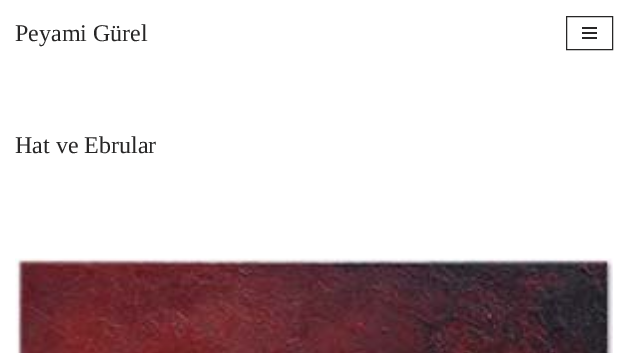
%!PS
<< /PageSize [628 353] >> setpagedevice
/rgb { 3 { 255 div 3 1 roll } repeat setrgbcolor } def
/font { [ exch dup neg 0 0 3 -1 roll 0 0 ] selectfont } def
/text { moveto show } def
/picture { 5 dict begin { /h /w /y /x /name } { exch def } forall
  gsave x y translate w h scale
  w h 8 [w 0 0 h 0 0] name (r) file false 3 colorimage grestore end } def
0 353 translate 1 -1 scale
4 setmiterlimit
255 255 255 rgb
0 0 628 353 rectfill
39 38 38 rgb
566.5 16.5 46 33 rectstroke
582 27 15 2 rectfill
582 32 15 2 rectfill
582 37 15 2 rectfill
(img_01.rgb) 15 258 598 95 picture
/LiberationSerif-Regular 24 font
(Peyami Gürel) 15 41 text
(Hat ve Ebrular) 15 153 text
showpage
